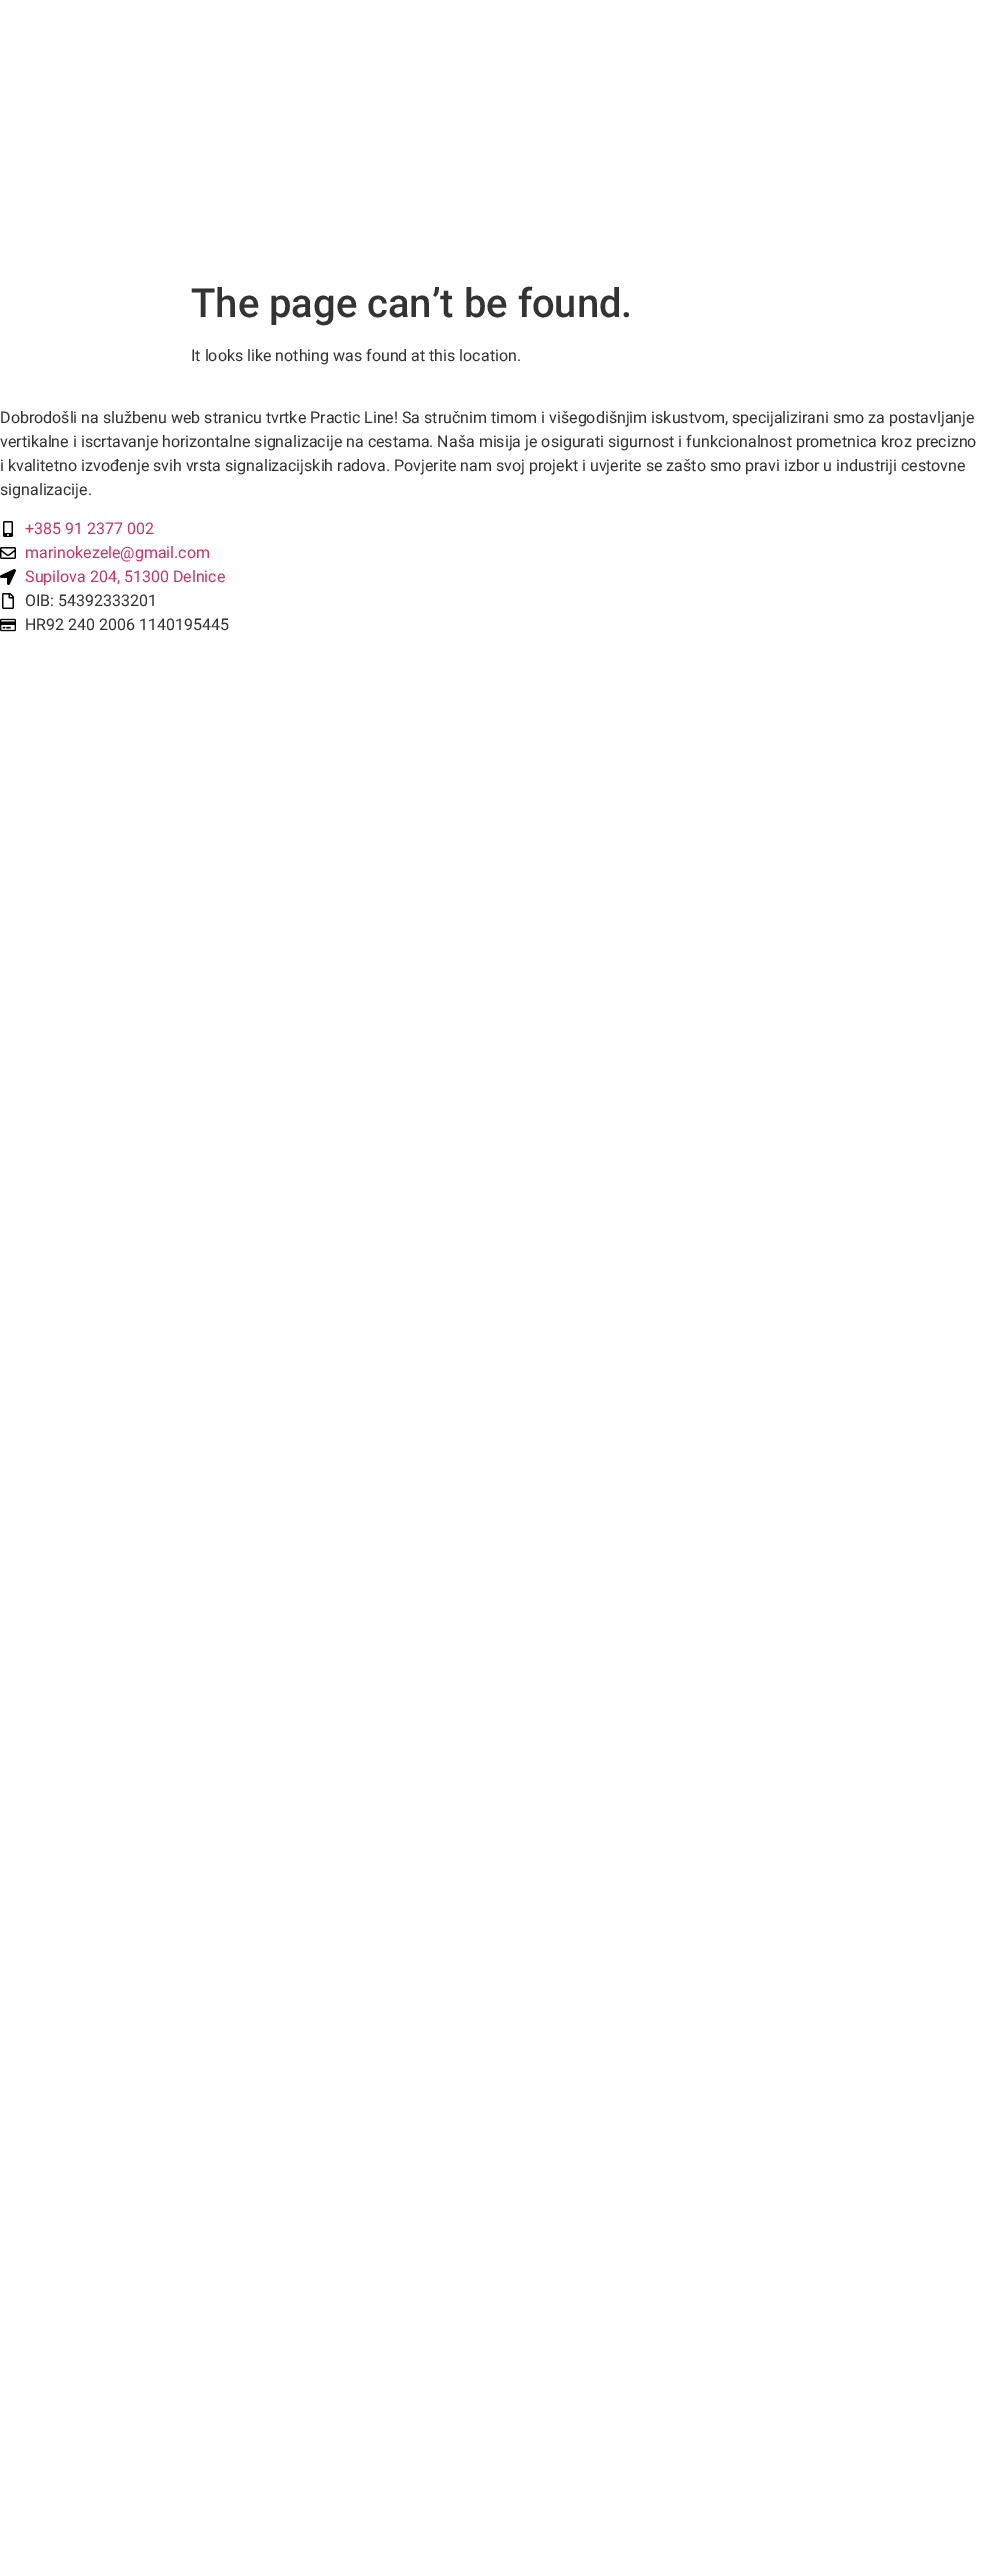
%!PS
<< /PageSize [982 2572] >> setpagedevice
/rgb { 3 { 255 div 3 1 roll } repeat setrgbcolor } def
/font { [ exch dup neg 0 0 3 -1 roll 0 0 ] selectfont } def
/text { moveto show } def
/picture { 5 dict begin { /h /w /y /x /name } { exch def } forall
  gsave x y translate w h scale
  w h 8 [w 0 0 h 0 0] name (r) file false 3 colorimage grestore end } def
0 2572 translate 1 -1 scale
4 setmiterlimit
255 255 255 rgb
0 0 982 2572 rectfill
(img_01.rgb) 3 521 10 16 picture
(img_02.rgb) 0 547 16 12 picture
(img_03.rgb) 0 569 16 16 picture
(img_04.rgb) 2 593 12 16 picture
(img_05.rgb) 0 618 16 14 picture
/Roboto-Medium 40 font
51 51 51 rgb
(The page can’t be found.) 191 317 text
/Roboto-Regular 16 font
(It looks like nothing was found at this location.) 191 361 text
(Dobrodošli na službenu web stranicu tvrtke Practic Line! Sa stručnim timom i višegodišnjim iskustvom, specijalizirani smo za postavljanje) 0 423 text
(vertikalne i iscrtavanje horizontalne signalizacije na cestama. Naša misija je osigurati sigurnost i funkcionalnost prometnica kroz precizno) 0 447 text
(i kvalitetno izvođenje svih vrsta signalizacijskih radova. Povjerite nam svoj projekt i uvjerite se zašto smo pravi izbor u industriji cestovne) 0 471 text
(signalizacije.) 0 495 text
204 51 102 rgb
(+385 91 2377 002) 25 534 text
(marinokezele@gmail.com) 25 558 text
(Supilova 204, 51300 Delnice) 25 582 text
51 51 51 rgb
(OIB: 54392333201) 25 606 text
(HR92 240 2006 1140195445) 25 630 text
showpage
